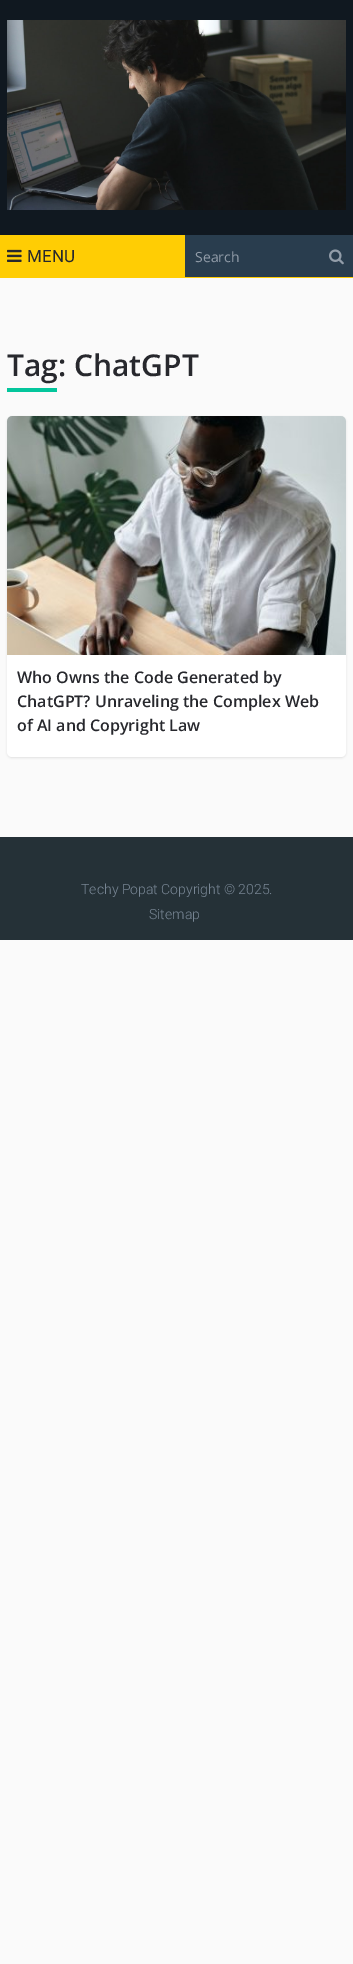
%!PS
<< /PageSize [353 1964] /PageUsesTransparency true >> setpagedevice
/rgb { 3 { 255 div 3 1 roll } repeat setrgbcolor } def
/font { [ exch dup neg 0 0 3 -1 roll 0 0 ] selectfont } def
/text { moveto show } def
/alpha { dup .setfillconstantalpha .setstrokeconstantalpha } def
/roundrect { 5 dict begin { /r /h /w /y /x } { exch def } forall
  x r add y moveto x w add y 2 copy h add r arct x w add y h add x 1 index r arct
  x y h add x y r arct x y 2 copy exch w add exch r arct closepath end } def
/shadow { 12 dict begin { /a /b /q /h /w /y /x } { exch def } forall gsave /was 0 def
  9 -2 -9 { dup b mul 4 div /e exch def 1 sub .425 mul 2.718 exch exp 1 add a .99 .min exch div /now exch def
    1 1 now sub 1 was sub div sub alpha /was now def
    w h .min e 2 mul add 0 gt { x e sub y e sub w e 2 mul add h e 2 mul add
      q e add b .6 mul add w h .min 2 div e add .min 0 .max roundrect fill } if } for grestore end } def
/picture { 5 dict begin { /h /w /y /x /name } { exch def } forall
  gsave x y translate w h scale
  w h 8 [w 0 0 h 0 0] name (r) file false 3 colorimage grestore end } def
0 .pushpdf14devicefilter
0 1964 translate 1 -1 scale
4 setmiterlimit
250 250 250 rgb
0 0 353 1964 rectfill
16 24 32 rgb
0 0 353 235 rectfill
(img_01.rgb) 7 20 339 190 picture
255 205 4 rgb
0 235 353 43 rectfill
(img_02.rgb) 7 249 15 13 picture
41 61 78 rgb
185 235 168 42 rectfill
(img_03.rgb) 329 249 15 16 picture
3 198 156 rgb
7 388 50 4 rectfill
0 0 0 rgb
7 417 339 341 5 1 0.1 shadow
255 255 255 rgb
7 416 339 341 5 roundrect fill
(img_04.rgb) 7 416 339 239 picture
37 49 55 rgb
0 837 353 103 rectfill
/Roboto-Regular 17 font
39 40 45 rgb
(MENU) 27 262 text
/OpenSans-Regular 14 font
146 157 169 rgb
(Search) 195 262 text
/OpenSans-SemiBold 30 font
39 40 45 rgb
(Tag: ChatGPT) 7 376 text
/OpenSans-SemiBold 16 font
(Who Owns the Code Generated by) 17 683 text
(ChatGPT? Unraveling the Complex Web) 17 707 text
(of AI and Copyright Law) 17 731 text
/Roboto-Light 14 font
120 134 148 rgb
(Techy Popat Copyright © 2025.) 81 894 text
(Sitemap) 149 919 text
.poppdf14devicefilter showpage
